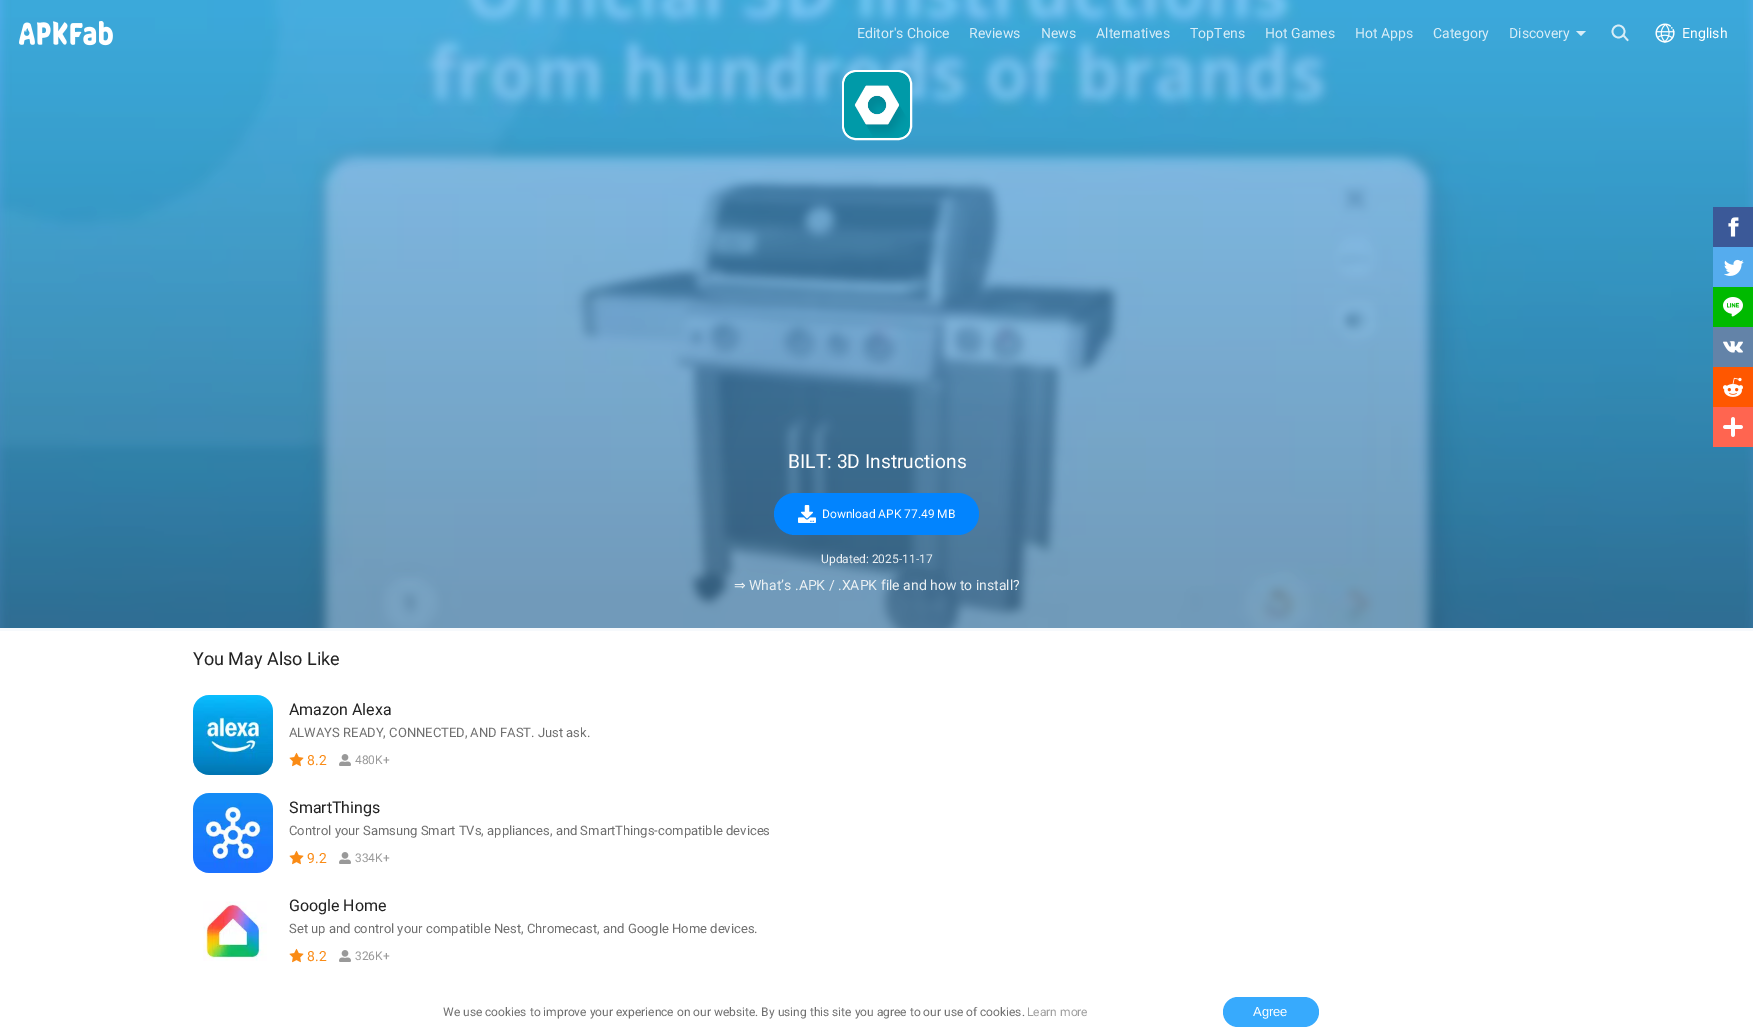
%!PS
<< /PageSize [1753 1036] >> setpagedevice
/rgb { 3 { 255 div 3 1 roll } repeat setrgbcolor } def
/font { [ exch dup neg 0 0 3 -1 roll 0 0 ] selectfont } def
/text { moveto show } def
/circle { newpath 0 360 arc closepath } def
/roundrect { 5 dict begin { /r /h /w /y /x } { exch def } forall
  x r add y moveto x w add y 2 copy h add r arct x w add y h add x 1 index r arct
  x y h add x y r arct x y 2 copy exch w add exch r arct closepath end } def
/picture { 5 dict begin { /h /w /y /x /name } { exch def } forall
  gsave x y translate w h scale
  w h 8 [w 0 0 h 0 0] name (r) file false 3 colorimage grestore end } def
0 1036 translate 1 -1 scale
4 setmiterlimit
246 249 252 rgb
0 0 1753 1036 rectfill
gsave 0 0 moveto 1753 0 rlineto 0 628 rlineto -1753 0 rlineto closepath clip newpath
<< /ShadingType 2 /ColorSpace /DeviceRGB /Coords [877 0 877 628] /Extend [true true] /Function << /FunctionType 3 /Domain [0 1] /Functions [<< /FunctionType 2 /Domain [0 1] /C0 [0.333 0.686 0.941] /C1 [0.333 0.686 0.941] /N 1 >> << /FunctionType 2 /Domain [0 1] /C0 [0.333 0.686 0.941] /C1 [0.235 0.478 0.659] /N 1 >> << /FunctionType 2 /Domain [0 1] /C0 [0.235 0.478 0.659] /C1 [0.235 0.478 0.659] /N 1 >>] /Bounds [0.02 0.95] /Encode [0 1 0 1 0 1] >> >> shfill grestore
(img_03.rgb) 0 0 1753 628 picture
(img_01.rgb) 19 21 94 25 picture
216 237 247 rgb
1576 31 moveto 10 0 rlineto -5 5 rlineto closepath fill
1.7 setlinewidth
1618.5 31.5 6 circle stroke
2 setlinecap
1623.5 35.5 moveto 4 4.5 rlineto stroke
(img_02.rgb) 1655 23 20 20 picture
255 255 255 rgb
843 71 68 68 13 roundrect gsave fill grestore
2 setlinewidth
0 setlinecap
stroke
(img_04.rgb) 844 72 66 66 picture
2 132 254 rgb
774 493 205 42 21 roundrect fill
(img_05.rgb) 798 505 18 18 picture
255 255 255 rgb
0 631 1753 405 rectfill
(img_06.rgb) 193 695 80 80 picture
(img_07.rgb) 289 752 15 15 picture
(img_08.rgb) 339 754 12 12 picture
(img_09.rgb) 193 793 80 80 picture
(img_07.rgb) 289 850 15 15 picture
(img_08.rgb) 339 852 12 12 picture
(img_10.rgb) 203 901 64 60 picture
(img_07.rgb) 289 948 15 15 picture
(img_08.rgb) 339 950 12 12 picture
59 89 152 rgb
1713 207 40 40 rectfill
(img_11.rgb) 1728 217 11 20 picture
85 172 238 rgb
1713 247 40 40 rectfill
(img_12.rgb) 1724 259 20 17 picture
0 186 0 rgb
1713 287 40 40 rectfill
(img_13.rgb) 1723 297 20 20 picture
99 131 168 rgb
1713 327 40 40 rectfill
(img_14.rgb) 1723 341 20 12 picture
255 87 0 rgb
1713 367 40 40 rectfill
(img_15.rgb) 1723 377 20 20 picture
255 101 80 rgb
1713 407 40 40 rectfill
(img_16.rgb) 1723 417 20 20 picture
55 170 253 rgb
1223 997 96 30 15 roundrect fill
/Roboto-Regular 14 font
216 237 247 rgb
(Editor's Choice) 857 38 text
(Reviews) 969 38 text
(News) 1041 38 text
(Alternatives) 1096 38 text
(TopTens) 1190 38 text
(Hot Games) 1265 38 text
(Hot Apps) 1355 38 text
(Category) 1433 38 text
(Discovery) 1509 38 text
255 255 255 rgb
(English) 1682 38 text
/Roboto-Regular 19.25 font
(BILT: 3D Instructions) 788 468 text
/Roboto-Regular 12 font
(Download APK 77.49 MB) 822 518 text
236 241 244 rgb
(Updated: 2025-11-17) 821 563 text
/DejaVuSans-Regular 14 font
(⇒) 734 590 text
/Roboto-Regular 14 font
(What’s .APK / .XAPK file and how to install?) 749 590 text
/Roboto-Regular 18 font
34 34 34 rgb
(You May Also Like) 193 665 text
/Roboto-Regular 16 font
(Amazon Alexa) 289 715 text
/Roboto-Regular 13 font
111 111 111 rgb
(ALWAYS READY, CONNECTED, AND FAST. Just ask.) 289 737 text
/Roboto-Regular 14 font
250 139 22 rgb
(8.2) 307 765 text
/Roboto-Regular 12 font
153 153 153 rgb
(480K+) 355 764 text
/Roboto-Regular 16 font
34 34 34 rgb
(SmartThings) 289 813 text
/Roboto-Regular 13 font
111 111 111 rgb
(Control your Samsung Smart TVs, appliances, and SmartThings-compatible devices) 289 835 text
/Roboto-Regular 14 font
250 139 22 rgb
(9.2) 307 863 text
/Roboto-Regular 12 font
153 153 153 rgb
(334K+) 355 862 text
/Roboto-Regular 16 font
34 34 34 rgb
(Google Home) 289 911 text
/Roboto-Regular 13 font
111 111 111 rgb
(Set up and control your compatible Nest, Chromecast, and Google Home devices.) 289 933 text
/Roboto-Regular 14 font
250 139 22 rgb
(8.2) 307 961 text
/Roboto-Regular 12 font
153 153 153 rgb
(326K+) 355 960 text
111 111 111 rgb
(We use cookies to improve your experience on our website. By using this site you agree to our use of cookies.) 443 1016 text
159 159 159 rgb
(Learn more) 1027 1016 text
/LiberationSans-Regular 13 font
255 255 255 rgb
(Agree) 1253 1016 text
showpage
